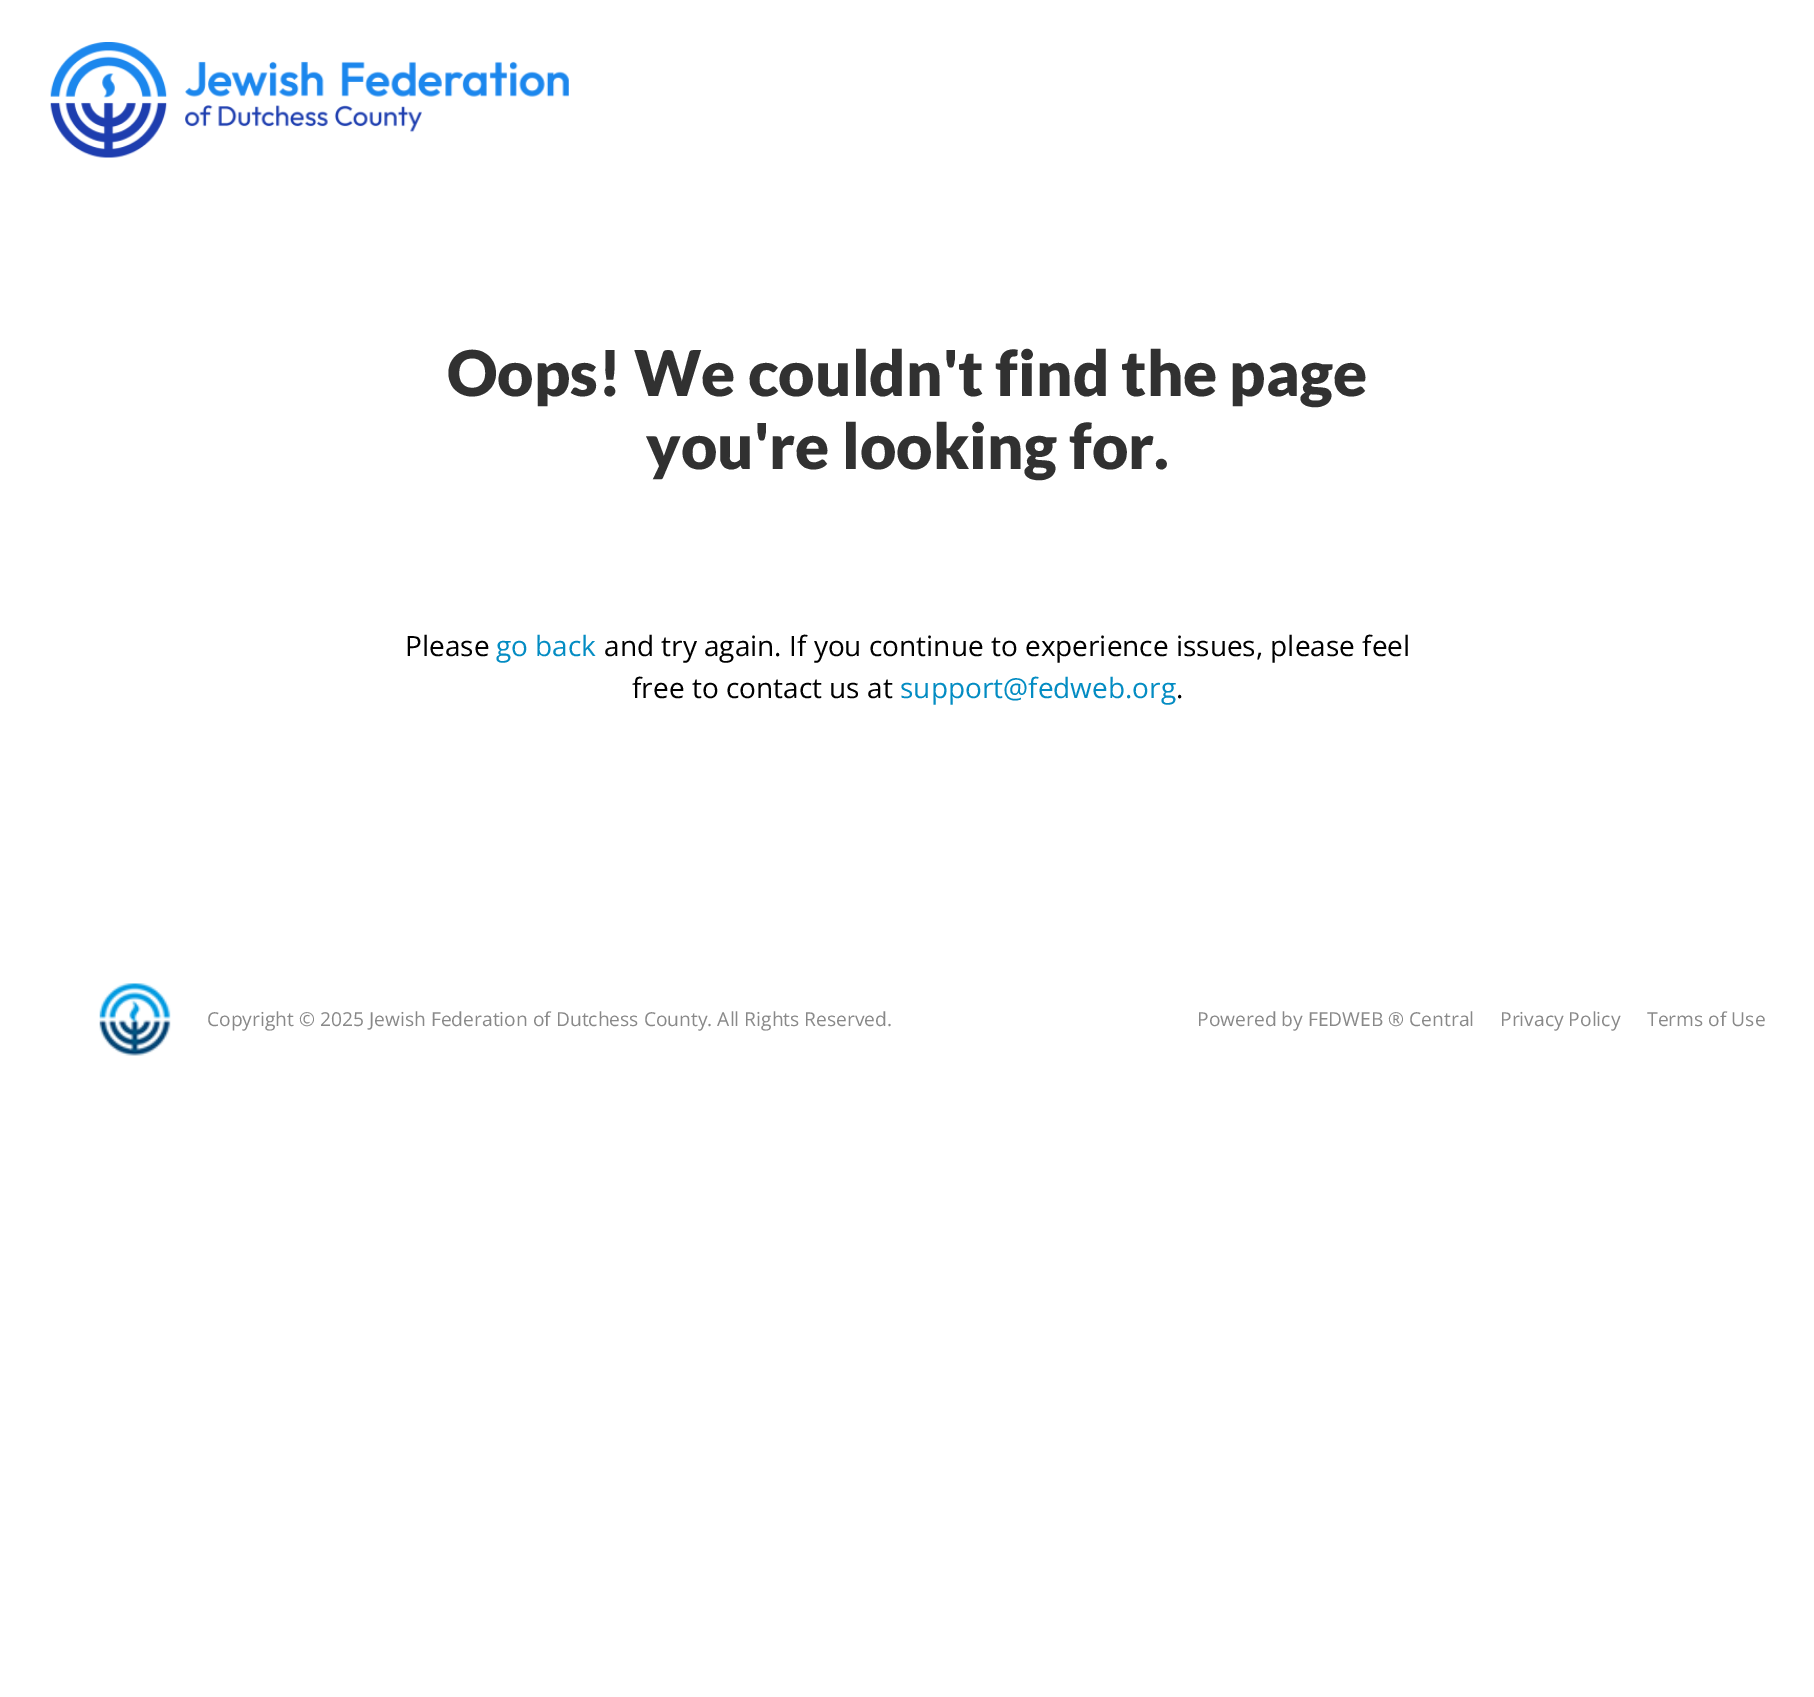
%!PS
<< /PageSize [1814 1697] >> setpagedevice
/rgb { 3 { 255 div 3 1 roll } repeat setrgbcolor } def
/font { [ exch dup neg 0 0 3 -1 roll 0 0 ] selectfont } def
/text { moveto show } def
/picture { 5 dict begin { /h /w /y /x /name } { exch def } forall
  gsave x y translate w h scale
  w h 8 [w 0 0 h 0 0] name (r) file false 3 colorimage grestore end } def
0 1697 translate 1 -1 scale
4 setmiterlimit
255 255 255 rgb
0 0 1814 1697 rectfill
(img_01.rgb) 50 42 519 116 picture
(img_02.rgb) 99 983 72 73 picture
/Lato-Black 63 font
49 49 49 rgb
(Oops! We couldn't find the page) 447 396 text
(you're looking for.) 646 469 text
/OpenSans-Regular 28 font
0 0 0 rgb
(Please) 405 656 text
3 140 195 rgb
(go back) 496 656 text
0 0 0 rgb
(and try again. If you continue to experience issues, please feel) 604 656 text
(free to contact us at) 632 698 text
3 140 195 rgb
(support@fedweb.org) 900 698 text
0 0 0 rgb
(.) 1176 698 text
/OpenSans-Regular 19.25 font
137 137 137 rgb
(Copyright © 2025 Jewish Federation of Dutchess County. All Rights Reserved.) 207 1026 text
(Powered by FEDWEB ® Central) 1197 1026 text
(Privacy Policy) 1500 1026 text
(Terms of Use) 1647 1026 text
showpage
